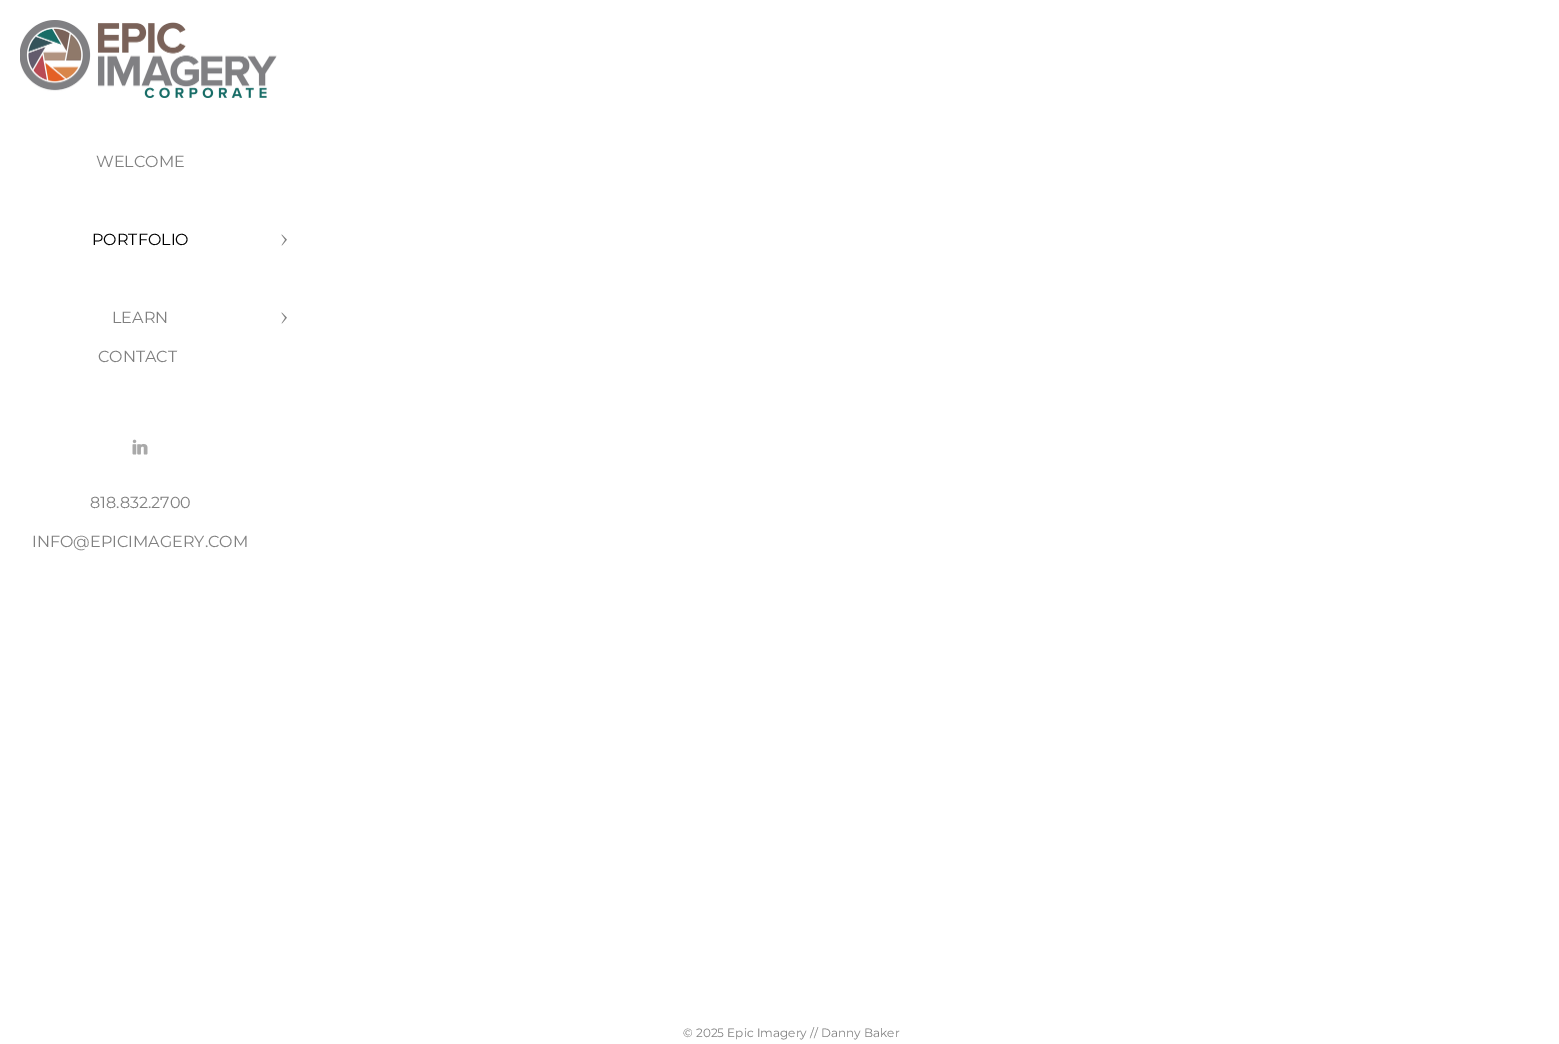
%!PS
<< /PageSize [1559 1044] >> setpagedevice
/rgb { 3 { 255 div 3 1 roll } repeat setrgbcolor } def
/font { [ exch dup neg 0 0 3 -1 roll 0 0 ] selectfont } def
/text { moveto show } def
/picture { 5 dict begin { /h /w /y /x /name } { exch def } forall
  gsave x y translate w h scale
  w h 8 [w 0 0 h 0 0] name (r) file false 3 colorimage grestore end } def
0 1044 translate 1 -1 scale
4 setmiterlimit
255 255 255 rgb
0 0 1559 1044 rectfill
(img_01.rgb) 20 20 257 78 picture
(img_02.rgb) 281 234 6 12 picture
(img_02.rgb) 281 312 6 12 picture
(img_03.rgb) 132 439 16 16 picture
/Montserrat-Thin 16 font
128 128 128 rgb
(WELCOME) 96 167 text
0 0 0 rgb
(PORTFOLIO) 92 245 text
128 128 128 rgb
(LEARN) 112 323 text
(CONTACT) 98 362 text
(818.832.2700) 90 508 text
(INFO@EPICIMAGERY.COM) 32 547 text
/Montserrat-Thin 12 font
(© 2025 Epic Imagery // Danny Baker) 683 1037 text
showpage
